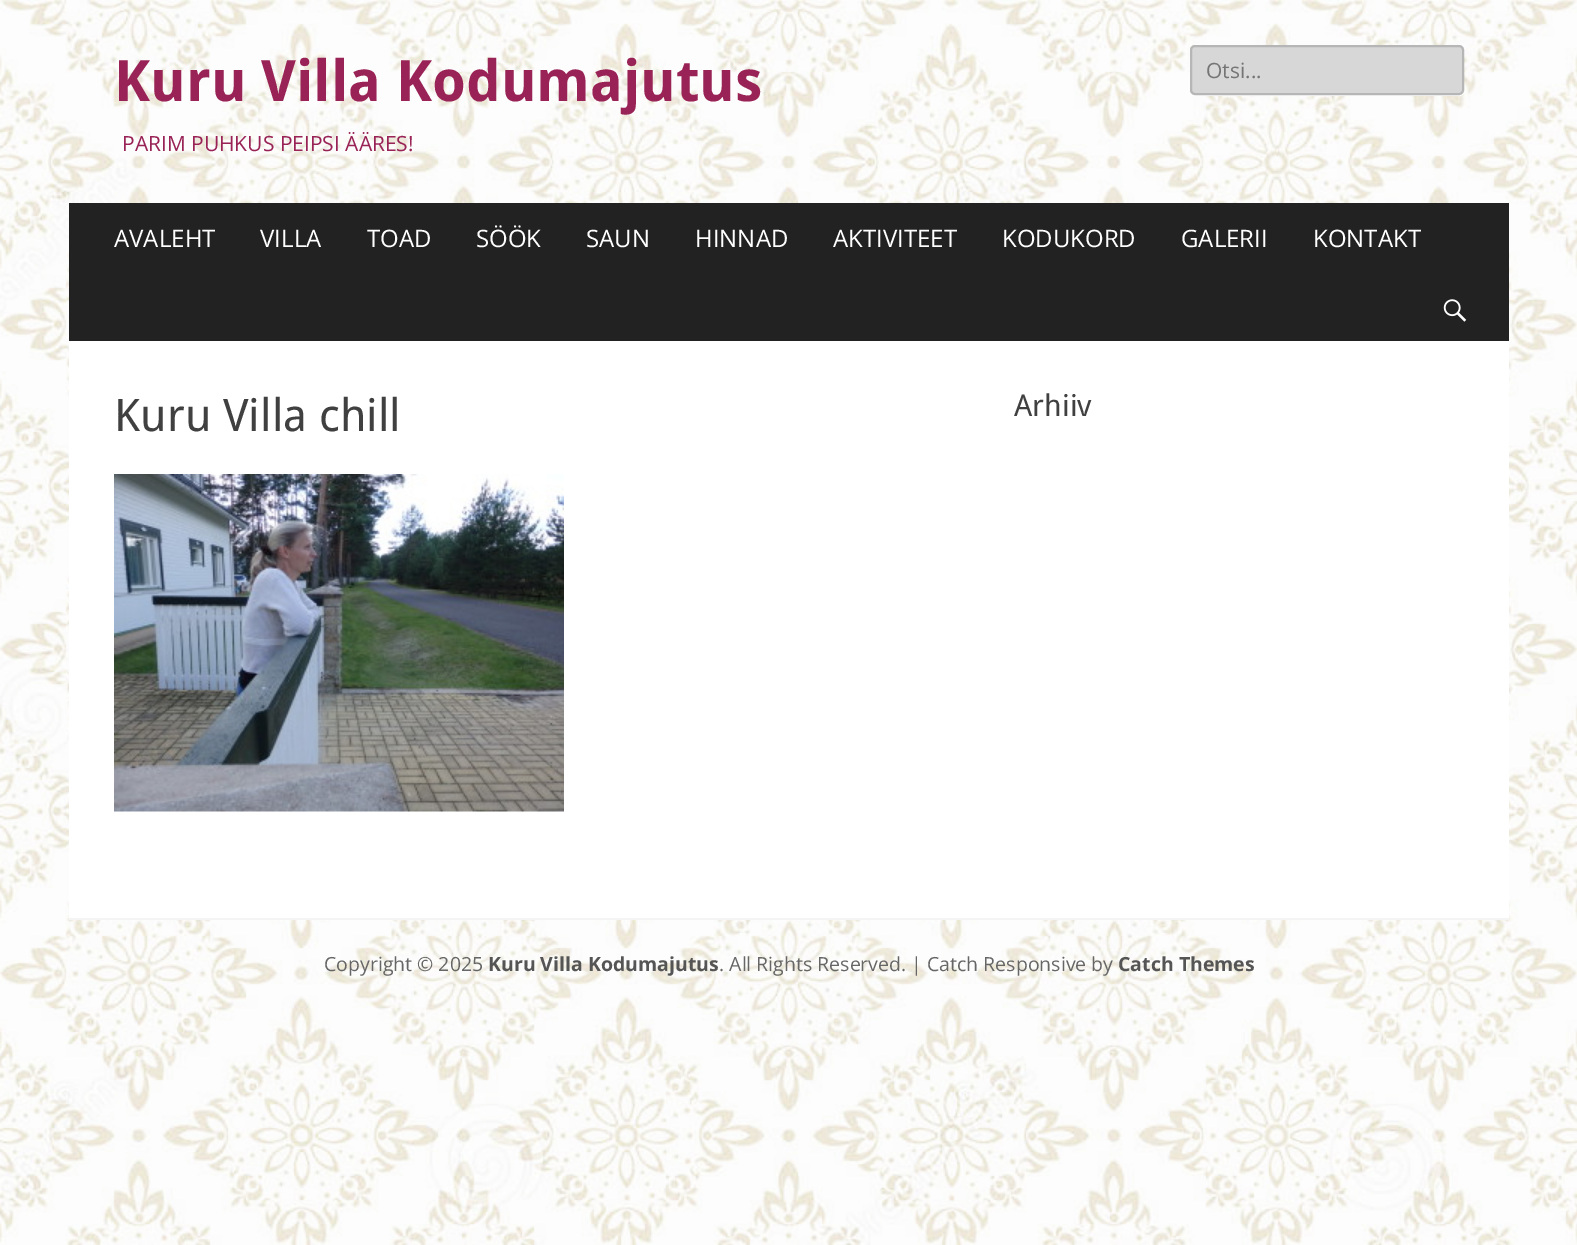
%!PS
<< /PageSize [1577 1245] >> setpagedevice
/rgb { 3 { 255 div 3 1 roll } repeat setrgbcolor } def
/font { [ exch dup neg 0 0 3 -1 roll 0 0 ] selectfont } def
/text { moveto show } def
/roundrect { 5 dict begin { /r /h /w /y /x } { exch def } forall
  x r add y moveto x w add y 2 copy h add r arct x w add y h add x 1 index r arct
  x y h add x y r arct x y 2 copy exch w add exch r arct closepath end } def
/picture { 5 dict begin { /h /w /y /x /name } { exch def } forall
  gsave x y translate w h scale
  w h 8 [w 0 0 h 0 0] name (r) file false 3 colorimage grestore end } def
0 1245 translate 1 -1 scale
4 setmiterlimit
255 255 255 rgb
0 0 1577 1245 rectfill
(img_01.rgb) 0 0 1577 1245 picture
1190 92 moveto 1 2 3 4 5 4 rcurveto 264 0 rlineto 3 0 5 -2 5 -5 rcurveto 0 -1 rlineto 0 2 -2 4 -4 4 rcurveto -266 0 rlineto -2 0 -3 0 -4 -2 rcurveto closepath fill
215 215 215 rgb
1191 46 272 48 4 roundrect gsave fill grestore
182 182 182 rgb
2 setlinewidth
stroke
34 34 34 rgb
69 203 1440 138 rectfill
(img_02.rgb) 1443 299 24 23 picture
255 255 255 rgb
69 341 1440 577 rectfill
(img_03.rgb) 114 474 450 338 picture
244 244 244 rgb
69 918 1440 2 rectfill
/DroidSans-Bold 57 font
153 35 86 rgb
(Kuru Villa Kodumajutus) 114 101 text
/OpenSans-Regular 21 font
(PARIM PUHKUS PEIPSI ÄÄRES!) 122 151 text
117 117 117 rgb
(Otsi...) 1206 78 text
/OpenSans-Regular 24 font
255 255 255 rgb
(AVALEHT) 114 247 text
(VILLA) 260 247 text
(TOAD) 367 247 text
(SÖÖK) 476 247 text
(SAUN) 586 247 text
(HINNAD) 695 247 text
(AKTIVITEET) 833 247 text
(KODUKORD) 1002 247 text
(GALERII) 1181 247 text
(KONTAKT) 1313 247 text
/DroidSans-Regular 45 font
64 64 64 rgb
(Kuru Villa chill) 114 431 text
/DroidSans-Regular 30 font
(Arhiiv) 1014 416 text
/OpenSans-Regular 19.5 font
102 102 102 rgb
(Copyright © 2025) 324 971 text
/OpenSans-Bold 19.5 font
85 85 85 rgb
(Kuru Villa Kodumajutus) 488 971 text
/OpenSans-Regular 19.5 font
102 102 102 rgb
(. All Rights Reserved. | Catch Responsive by) 719 971 text
/OpenSans-Bold 19.5 font
85 85 85 rgb
(Catch Themes) 1118 971 text
showpage
